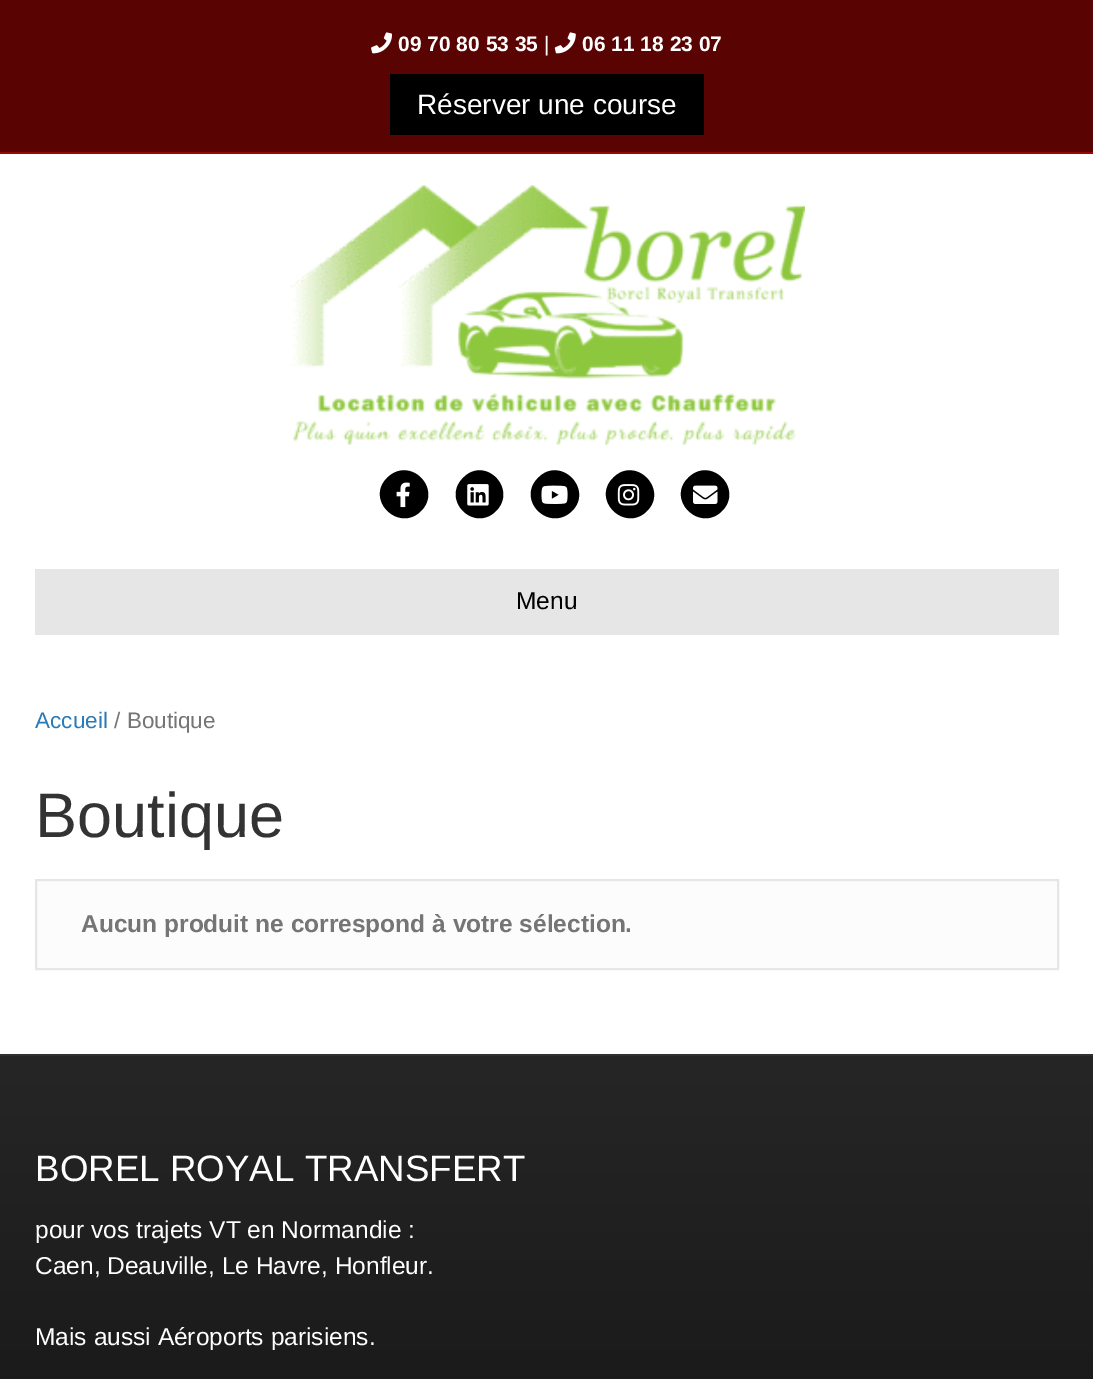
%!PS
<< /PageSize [1093 1379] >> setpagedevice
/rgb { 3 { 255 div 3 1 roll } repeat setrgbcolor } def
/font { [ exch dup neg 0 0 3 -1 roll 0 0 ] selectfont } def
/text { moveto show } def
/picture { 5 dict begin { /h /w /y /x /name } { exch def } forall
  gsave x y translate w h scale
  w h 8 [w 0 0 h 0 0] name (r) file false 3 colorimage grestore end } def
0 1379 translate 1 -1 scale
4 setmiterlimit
89 4 2 rgb
0 0 1093 1379 rectfill
154 7 3 rgb
0 152 1093 2 rectfill
(img_01.rgb) 371 32 21 22 picture
(img_02.rgb) 554 32 22 22 picture
0 0 0 rgb
390 74 314 61 rectfill
255 255 255 rgb
0 154 1093 900 rectfill
(img_03.rgb) 290 185 515 260 picture
0 0 0 rgb
387 478 moveto 23 -23 56 11 34 33 rcurveto -22 22 -56 -11 -34 -33 rcurveto closepath fill
(img_04.rgb) 396 482 14 26 picture
463 478 moveto 22 -23 55 11 33 33 rcurveto -22 22 -55 -11 -33 -33 rcurveto closepath fill
(img_05.rgb) 467 484 22 22 picture
538 478 moveto 22 -23 56 11 34 33 rcurveto -23 22 -56 -11 -34 -33 rcurveto closepath fill
(img_06.rgb) 541 485 27 19 picture
613 478 moveto 22 -23 56 11 34 33 rcurveto -22 22 -56 -11 -34 -33 rcurveto closepath fill
(img_07.rgb) 617 484 23 22 picture
688 478 moveto 23 -23 56 11 34 33 rcurveto -22 22 -56 -11 -34 -33 rcurveto closepath fill
(img_08.rgb) 693 485 25 19 picture
230 230 230 rgb
35 569 1024 66 rectfill
252 252 252 rgb
36 880 moveto 1022 0 rlineto 0 89 rlineto -1022 0 rlineto closepath gsave fill grestore
230 230 230 rgb
2 setlinewidth
stroke
gsave 0 1056 moveto 1093 0 rlineto 0 323 rlineto -1093 0 rlineto closepath clip newpath
<< /ShadingType 2 /ColorSpace /DeviceRGB /Coords [547 1055 547 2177] /Extend [true true] /Function << /FunctionType 2 /Domain [0 1] /C0 [0.149 0.149 0.149] /C1 [0 0 0] /N 1 >> >> shfill grestore
48 48 48 rgb
0 1054 1093 2 rectfill
/LiberationSans-Bold 21 font
255 255 255 rgb
(09 70 80 53 35) 398 51 text
/LiberationSans-Regular 21 font
(|) 544 51 text
/LiberationSans-Bold 21 font
(06 11 18 23 07) 582 51 text
/LiberationSans-Regular 28 font
(Réserver une course) 417 114 text
/LiberationSans-Regular 24.5 font
0 0 0 rgb
(Menu) 516 609 text
/LiberationSans-Regular 22.5 font
43 123 185 rgb
(Accueil) 35 728 text
117 117 117 rgb
(/ Boutique) 114 728 text
/LiberationSans-Regular 63 font
51 51 51 rgb
(Boutique) 35 837 text
/LiberationSans-Bold 24.5 font
117 117 117 rgb
(Aucun produit ne correspond à votre sélection.) 81 932 text
/LiberationSans-Regular 36.75 font
255 255 255 rgb
(BOREL ROYAL TRANSFERT) 35 1181 text
/LiberationSans-Regular 24.5 font
(pour vos trajets VT en Normandie :) 35 1238 text
(Caen, Deauville, Le Havre, Honfleur.) 35 1274 text
(Mais aussi Aéroports parisiens.) 35 1345 text
showpage
